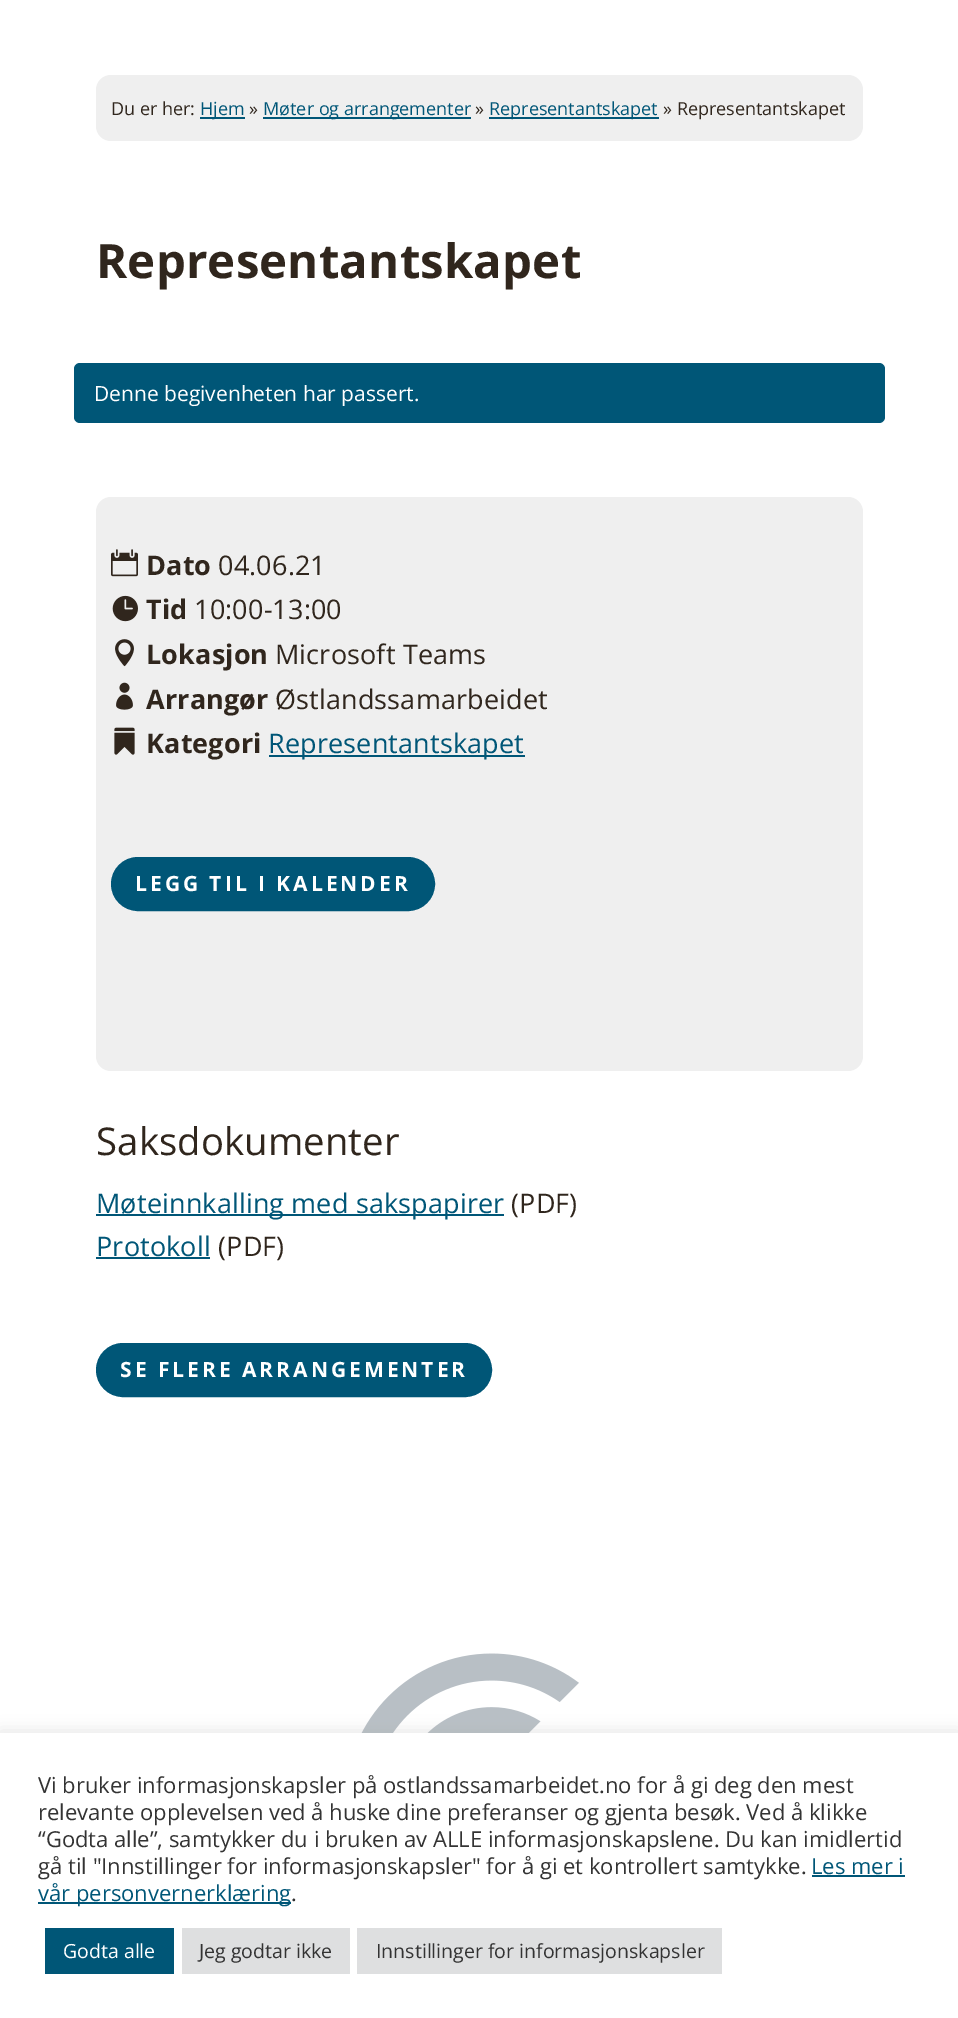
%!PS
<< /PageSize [958 2018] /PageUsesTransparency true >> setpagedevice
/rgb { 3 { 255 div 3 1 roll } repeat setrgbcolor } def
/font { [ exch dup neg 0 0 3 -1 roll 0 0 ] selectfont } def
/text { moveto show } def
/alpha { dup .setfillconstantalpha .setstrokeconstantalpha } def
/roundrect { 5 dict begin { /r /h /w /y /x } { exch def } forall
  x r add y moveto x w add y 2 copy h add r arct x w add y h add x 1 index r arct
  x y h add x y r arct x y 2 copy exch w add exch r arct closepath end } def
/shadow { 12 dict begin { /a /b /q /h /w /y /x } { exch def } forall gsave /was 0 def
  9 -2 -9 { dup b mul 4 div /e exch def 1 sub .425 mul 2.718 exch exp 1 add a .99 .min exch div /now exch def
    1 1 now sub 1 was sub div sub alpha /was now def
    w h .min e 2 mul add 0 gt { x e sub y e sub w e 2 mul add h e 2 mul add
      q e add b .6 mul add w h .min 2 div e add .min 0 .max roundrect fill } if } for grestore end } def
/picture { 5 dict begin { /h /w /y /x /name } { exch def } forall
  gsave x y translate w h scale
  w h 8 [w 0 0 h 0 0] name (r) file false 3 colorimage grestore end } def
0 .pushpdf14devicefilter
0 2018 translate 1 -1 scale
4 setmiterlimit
255 255 255 rgb
0 0 958 2018 rectfill
239 239 239 rgb
96 75 767 66 15 roundrect fill
0 86 119 rgb
200 117 45 2 rectfill
263 117 208 2 rectfill
489 117 170 2 rectfill
74 363 811 60 6 roundrect fill
239 239 239 rgb
96 497 767 574 15 roundrect fill
(img_01.rgb) 111 549 27 28 picture
(img_02.rgb) 112 595 26 27 picture
(img_03.rgb) 115 639 19 28 picture
(img_04.rgb) 116 682 17 28 picture
(img_05.rgb) 114 727 21 28 picture
0 86 119 rgb
269 755 256 2 rectfill
112.5 858.5 321 51 25.5 roundrect gsave fill grestore
3 setlinewidth
stroke
96 1214 408 2 rectfill
96 1257 114 2 rectfill
97.5 1344.5 393 51 25.5 roundrect gsave fill grestore
stroke
(img_06.rgb) 361 1653 218 80 picture
172 171 171 rgb
0 1731 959 287 0 7.5 0.3 shadow
255 255 255 rgb
0 1733 958 285 rectfill
0 86 119 rgb
812 1875 93 2 rectfill
38 1902 253 2 rectfill
45 1928 129 46 rectfill
222 223 224 rgb
182 1928 168 46 rectfill
357 1928 365 46 rectfill
/OpenSans-Regular 18 font
48 38 29 rgb
(Du er her:) 111 115 text
0 86 119 rgb
(Hjem) 200 115 text
48 38 29 rgb
(») 249 115 text
0 86 119 rgb
(Møter og arrangementer) 263 115 text
48 38 29 rgb
(») 475 115 text
0 86 119 rgb
(Representantskapet) 489 115 text
48 38 29 rgb
(» Representantskapet) 663 115 text
/OpenSans-Bold 47.4 font
96 278 moveto 0.15 0 (Representantskapet) ashow
/OpenSans-Regular 21 font
255 255 255 rgb
(Denne begivenheten har passert.) 94 401 text
/OpenSans-Bold 27 font
48 38 29 rgb
146 575 moveto 0.15 0 (Dato) ashow
/OpenSans-Regular 27 font
218 575 moveto 0.15 0 (04.06.21) ashow
/OpenSans-Bold 27 font
146 619 moveto 0.15 0 (Tid) ashow
/OpenSans-Regular 27 font
194 619 moveto 0.15 0 (10:00-13:00) ashow
/OpenSans-Bold 27 font
146 664 moveto 0.15 0 (Lokasjon) ashow
/OpenSans-Regular 27 font
275 664 moveto 0.15 0 (Microsoft Teams) ashow
/OpenSans-Bold 27 font
146 709 moveto 0.15 0 (Arrangør) ashow
/OpenSans-Regular 27 font
275 709 moveto 0.15 0 (Østlandssamarbeidet) ashow
/OpenSans-Bold 27 font
146 753 moveto 0.15 0 (Kategori) ashow
/OpenSans-Regular 27 font
0 86 119 rgb
268 753 moveto 0.15 0 (Representantskapet) ashow
/OpenSans-Bold 21 font
255 255 255 rgb
135 891 moveto 3 0 (LEGG TIL I KALENDER) ashow
/OpenSans-Regular 38.25 font
48 38 29 rgb
96 1155 moveto 0.15 0 (Saksdokumenter) ashow
/OpenSans-Regular 27 font
0 86 119 rgb
96 1213 moveto 0.15 0 (Møteinnkalling med sakspapirer) ashow
48 38 29 rgb
511 1213 moveto 0.15 0 (\(PDF\)) ashow
0 86 119 rgb
96 1256 moveto 0.15 0 (Protokoll) ashow
48 38 29 rgb
218 1256 moveto 0.15 0 (\(PDF\)) ashow
/OpenSans-Bold 21 font
255 255 255 rgb
120 1377 moveto 3 0 (SE FLERE ARRANGEMENTER) ashow
/OpenSans-Regular 22 font
51 51 51 rgb
(Vi bruker informasjonskapsler på ostlandssamarbeidet.no for å gi deg den mest) 38 1793 text
(relevante opplevelsen ved å huske dine preferanser og gjenta besøk. Ved å klikke) 38 1820 text
(“Godta alle”, samtykker du i bruken av ALLE informasjonskapslene. Du kan imidlertid) 38 1847 text
(gå til "Innstillinger for informasjonskapsler" for å gi et kontrollert samtykke.) 38 1874 text
0 86 119 rgb
(Les mer i) 811 1874 text
(vår personvernerklæring) 38 1901 text
51 51 51 rgb
(.) 291 1901 text
/OpenSans-Regular 19.5 font
255 255 255 rgb
(Godta alle) 63 1958 text
51 51 51 rgb
(Jeg godtar ikke) 199 1958 text
(Innstillinger for informasjonskapsler) 376 1958 text
.poppdf14devicefilter showpage
